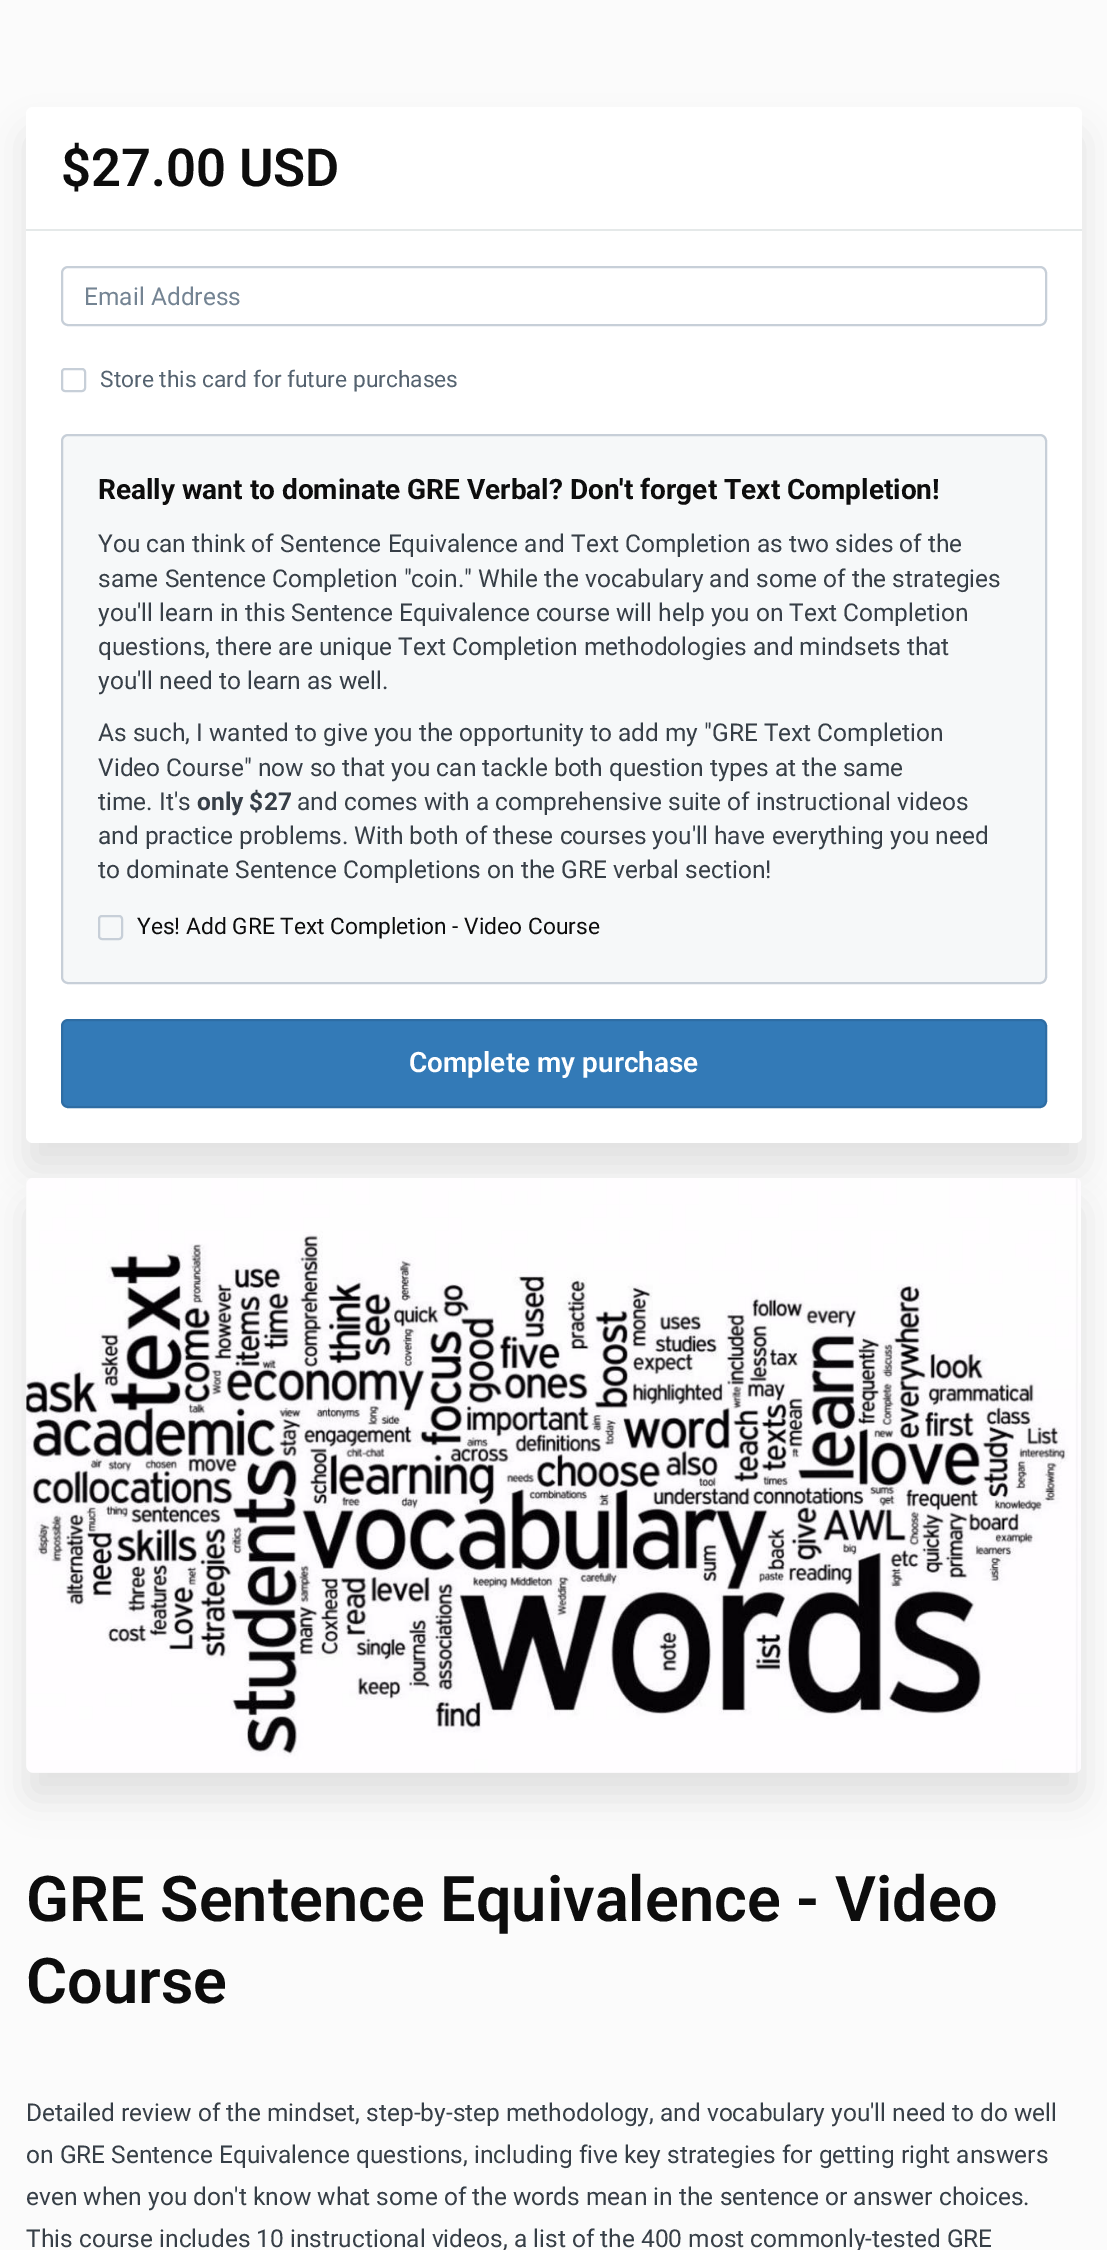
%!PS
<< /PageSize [1107 2250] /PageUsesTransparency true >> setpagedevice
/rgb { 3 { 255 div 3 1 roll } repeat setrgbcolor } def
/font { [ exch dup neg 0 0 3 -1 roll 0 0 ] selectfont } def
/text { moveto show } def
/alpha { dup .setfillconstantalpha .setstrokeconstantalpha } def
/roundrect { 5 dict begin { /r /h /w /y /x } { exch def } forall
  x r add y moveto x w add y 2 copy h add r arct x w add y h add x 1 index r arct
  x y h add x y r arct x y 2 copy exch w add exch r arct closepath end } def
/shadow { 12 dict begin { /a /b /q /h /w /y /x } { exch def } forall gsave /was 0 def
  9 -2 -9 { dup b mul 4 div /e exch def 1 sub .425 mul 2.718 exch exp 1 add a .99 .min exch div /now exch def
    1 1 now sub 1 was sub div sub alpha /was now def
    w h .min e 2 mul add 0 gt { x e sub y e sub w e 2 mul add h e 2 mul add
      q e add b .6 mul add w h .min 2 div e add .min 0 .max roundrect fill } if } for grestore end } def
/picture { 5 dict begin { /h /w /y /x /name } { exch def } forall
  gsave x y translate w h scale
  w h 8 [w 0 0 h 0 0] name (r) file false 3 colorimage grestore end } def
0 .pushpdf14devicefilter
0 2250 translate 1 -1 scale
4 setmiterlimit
251 251 251 rgb
0 0 1107 2250 rectfill
0 0 0 rgb
26 133 1056 1036 7 17.5 0.1 shadow
255 255 255 rgb
26 107 1056 1036 7 roundrect fill
229 233 233 rgb
26 229 1056 2 rectfill
199 207 216 rgb
2 setlinewidth
62 267 984 58 6 roundrect stroke
62 369 23 22 3 roundrect stroke
246 248 249 rgb
62 435 984 548 6 roundrect gsave fill grestore
199 207 216 rgb
stroke
99 916 23 23 3 roundrect stroke
51 122 183 rgb
62 1020 984 87 6 roundrect gsave fill grestore
46 109 164 rgb
stroke
0 0 0 rgb
26 1204 1056 595 7 17.5 0.1 shadow
(img_01.rgb) 26 1178 1055 595 picture
/Roboto-SemiBold 52.5 font
13 13 13 rgb
($27.00 USD) 61 186 text
/Roboto-Regular 24.5 font
116 132 147 rgb
(Email Address) 84 305 text
/Roboto-Regular 22.75 font
85 99 112 rgb
(Store this card for future purchases) 100 387 text
/Roboto-Bold 28 font
13 13 13 rgb
(Really want to dominate GRE Verbal? Don't forget Text Completion!) 98 499 text
/Roboto-Regular 24.5 font
55 63 71 rgb
(You can think of Sentence Equivalence and Text Completion as two sides of the) 98 552 text
(same Sentence Completion "coin." While the vocabulary and some of the strategies) 98 587 text
(you'll learn in this Sentence Equivalence course will help you on Text Completion) 98 621 text
(questions, there are unique Text Completion methodologies and mindsets that) 98 655 text
(you'll need to learn as well.) 98 689 text
(As such, I wanted to give you the opportunity to add my "GRE Text Completion) 98 741 text
(Video Course" now so that you can tackle both question types at the same) 98 776 text
(time. It's) 98 810 text
/Roboto-Bold 24.5 font
(only $27) 197 810 text
/Roboto-Regular 24.5 font
(and comes with a comprehensive suite of instructional videos) 297 810 text
(and practice problems. With both of these courses you'll have everything you need) 98 844 text
(to dominate Sentence Completions on the GRE verbal section!) 98 878 text
/Roboto-Regular 22.75 font
13 13 13 rgb
(Yes! Add GRE Text Completion - Video Course) 137 934 text
/Roboto-SemiBold 28 font
255 255 255 rgb
(Complete my purchase) 409 1072 text
/Roboto-SemiBold 63 font
13 13 13 rgb
(GRE Sentence Equivalence - Video) 26 1921 text
(Course) 26 2003 text
/Roboto-Regular 24.5 font
55 63 71 rgb
(Detailed review of the mindset, step-by-step methodology, and vocabulary you'll need to do well) 26 2121 text
(on GRE Sentence Equivalence questions, including five key strategies for getting right answers) 26 2163 text
(even when you don't know what some of the words mean in the sentence or answer choices.) 26 2205 text
(This course includes 10 instructional videos, a list of the 400 most commonly-tested GRE) 26 2247 text
.poppdf14devicefilter showpage
